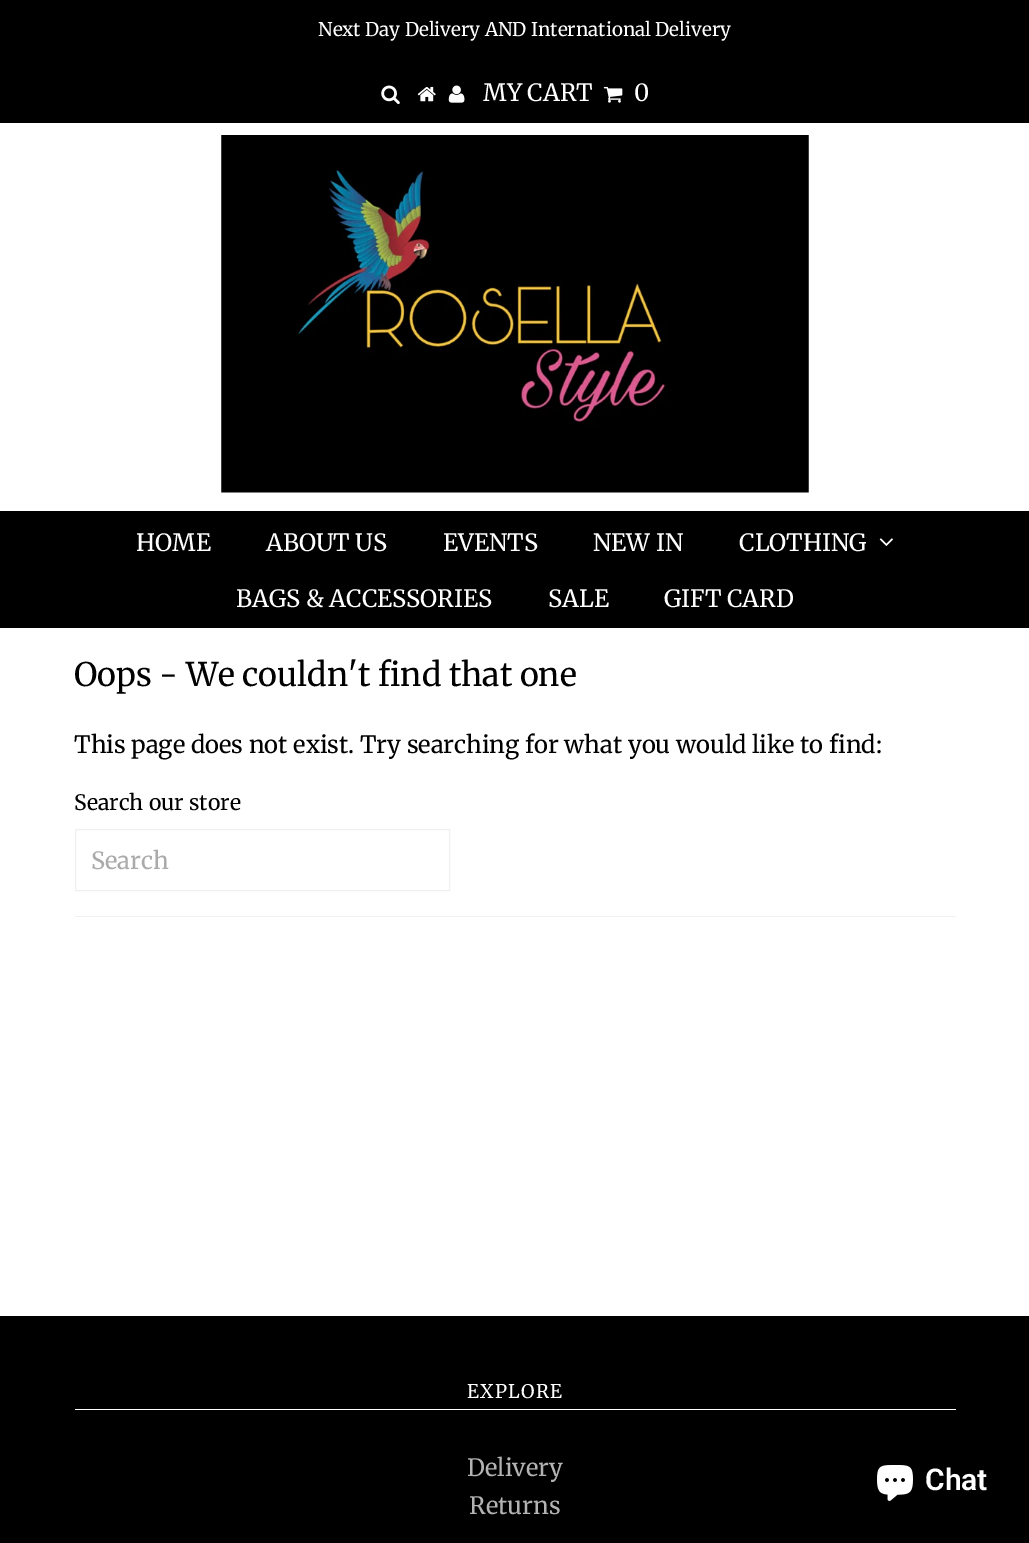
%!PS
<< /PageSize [1029 1543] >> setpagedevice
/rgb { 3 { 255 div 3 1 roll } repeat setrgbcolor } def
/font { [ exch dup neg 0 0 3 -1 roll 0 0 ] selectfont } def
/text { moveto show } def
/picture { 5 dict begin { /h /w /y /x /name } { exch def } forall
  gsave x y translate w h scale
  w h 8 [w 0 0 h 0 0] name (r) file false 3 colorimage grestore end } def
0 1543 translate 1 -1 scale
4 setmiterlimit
255 255 255 rgb
0 0 1029 1543 rectfill
0 0 0 rgb
0 0 1029 123 rectfill
(img_01.rgb) 381 85 19 20 picture
(img_02.rgb) 417 86 19 16 picture
(img_03.rgb) 448 85 17 18 picture
(img_04.rgb) 603 86 20 17 picture
(img_05.rgb) 221 135 588 358 picture
0 511 1029 117 rectfill
(img_06.rgb) 879 538 14 8 picture
240 240 240 rgb
75 916 881 1 rectfill
75.5 829.5 374 61 rectstroke
0 0 0 rgb
0 1316 1029 227 rectfill
255 255 255 rgb
75 1409 881 1 rectfill
(img_07.rgb) 877 1465 36 36 picture
/Merriweather-Regular 18.75 font
(Next Day Delivery AND International Delivery) 318 36 text
/Merriweather-Regular 23.75 font
(MY CART) 483 101 text
(0) 634 101 text
(HOME) 136 551 text
(ABOUT US) 266 551 text
(EVENTS) 443 551 text
(NEW IN) 593 551 text
(CLOTHING) 739 551 text
(BAGS & ACCESSORIES) 236 607 text
(SALE) 548 607 text
(GIFT CARD) 664 607 text
/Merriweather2-Regular 32.5 font
0 0 0 rgb
(Oops - We couldn't find that one) 74 686 text
/Merriweather-Regular 23.75 font
(This page does not exist. Try searching for what you would like to find:) 74 753 text
/Merriweather-Regular 21.25 font
(Search our store) 74 810 text
/Merriweather-Regular 23.75 font
170 170 170 rgb
(Search) 91 869 text
/Merriweather-Regular 18.75 font
255 255 255 rgb
467 1398 moveto 1.25 0 (EXPLORE) ashow
/Merriweather-Regular 23.75 font
179 179 179 rgb
(Delivery) 467 1476 text
(Returns) 469 1514 text
/Roboto-SemiBold 30 font
255 255 255 rgb
(Chat) 925 1490 text
showpage
